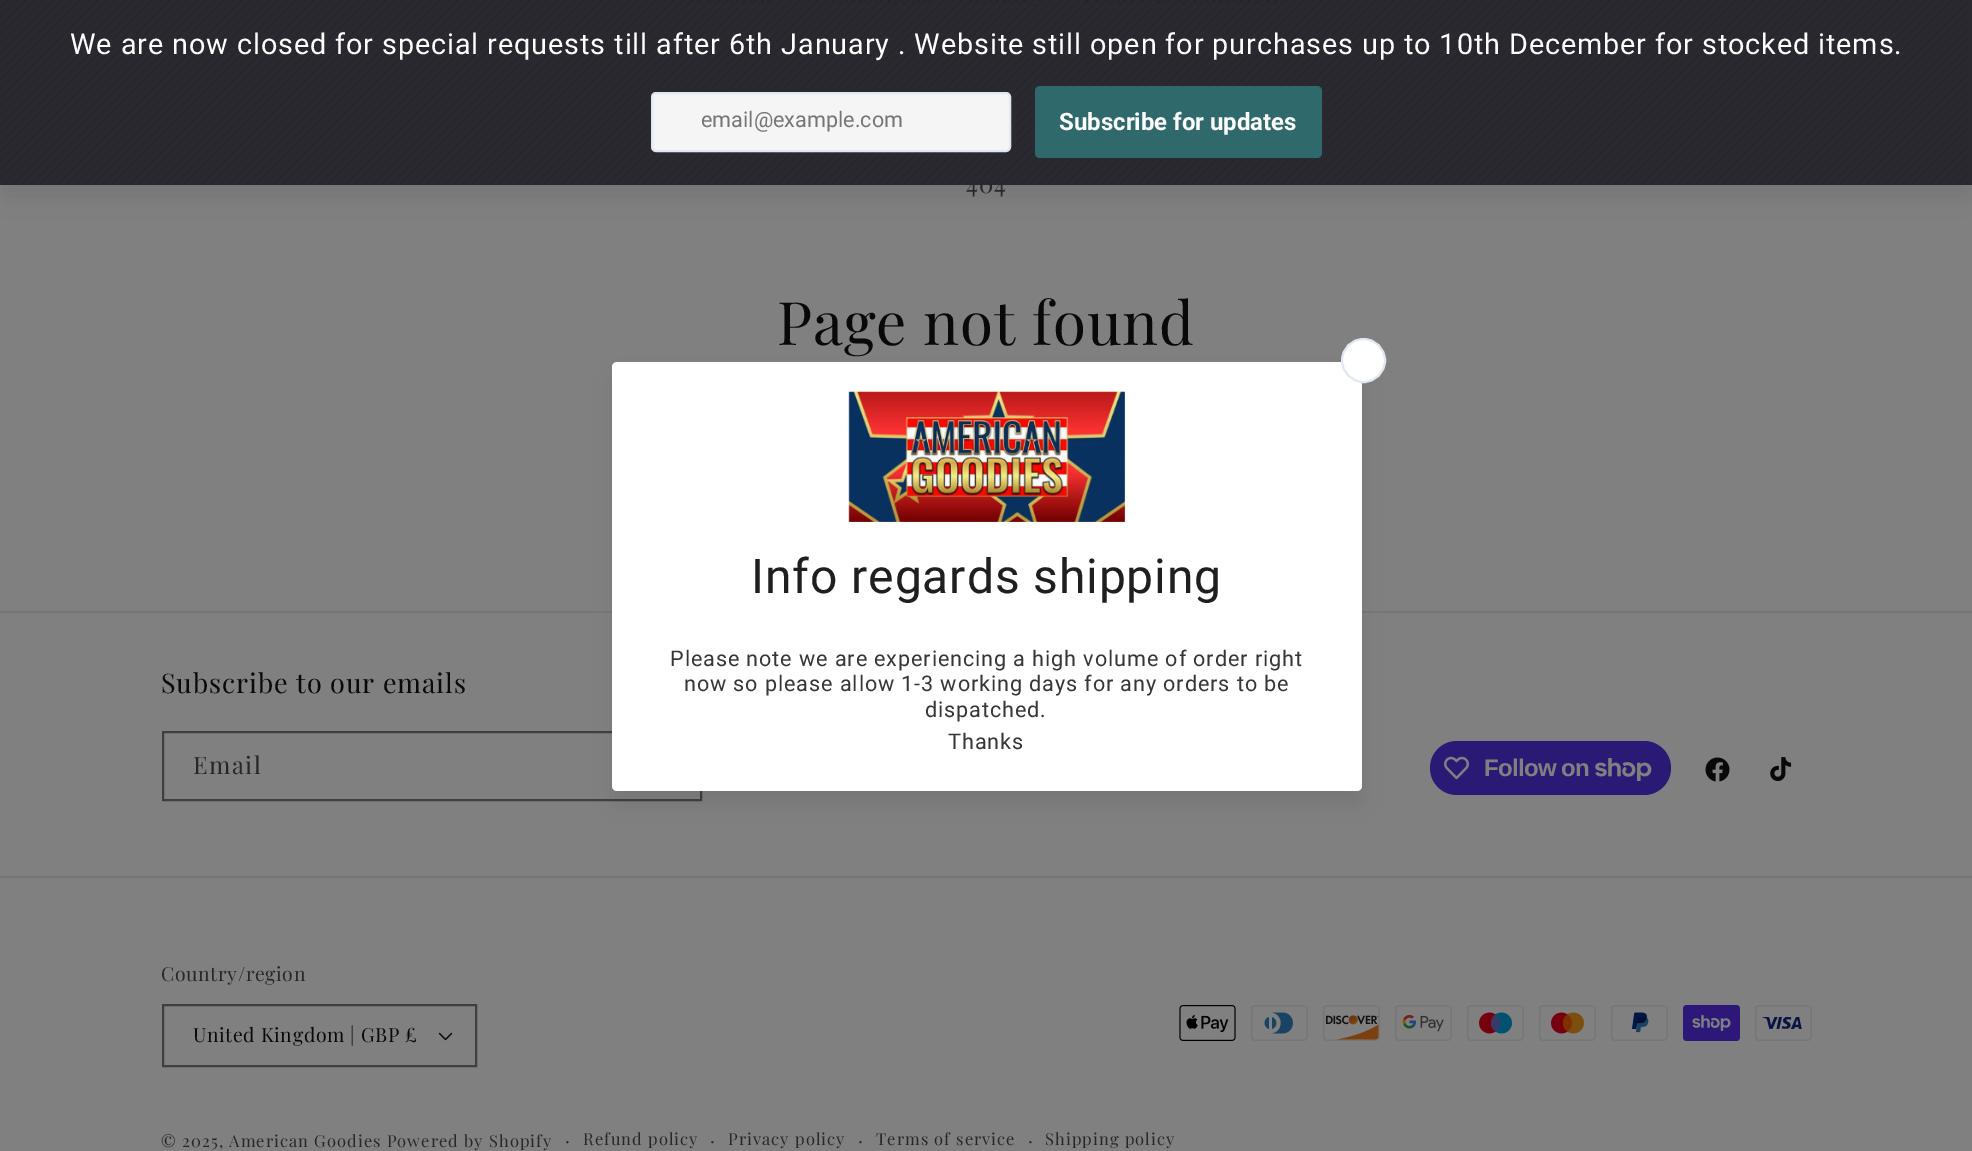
%!PS
<< /PageSize [1972 1151] /PageUsesTransparency true >> setpagedevice
/rgb { 3 { 255 div 3 1 roll } repeat setrgbcolor } def
/font { [ exch dup neg 0 0 3 -1 roll 0 0 ] selectfont } def
/text { moveto show } def
/alpha { dup .setfillconstantalpha .setstrokeconstantalpha } def
/circle { newpath 0 360 arc closepath } def
/roundrect { 5 dict begin { /r /h /w /y /x } { exch def } forall
  x r add y moveto x w add y 2 copy h add r arct x w add y h add x 1 index r arct
  x y h add x y r arct x y 2 copy exch w add exch r arct closepath end } def
/shadow { 12 dict begin { /a /b /q /h /w /y /x } { exch def } forall gsave /was 0 def
  9 -2 -9 { dup b mul 4 div /e exch def 1 sub .425 mul 2.718 exch exp 1 add a .99 .min exch div /now exch def
    1 1 now sub 1 was sub div sub alpha /was now def
    w h .min e 2 mul add 0 gt { x e sub y e sub w e 2 mul add h e 2 mul add
      q e add b .6 mul add w h .min 2 div e add .min 0 .max roundrect fill } if } for grestore end } def
/picture { 5 dict begin { /h /w /y /x /name } { exch def } forall
  gsave x y translate w h scale
  w h 8 [w 0 0 h 0 0] name (r) file false 3 colorimage grestore end } def
0 .pushpdf14devicefilter
0 1151 translate 1 -1 scale
4 setmiterlimit
128 128 128 rgb
0 0 1972 1151 rectfill
118 118 118 rgb
0 57 1972 2 rectfill
(img_01.rgb) 792 0 3 1 picture
gsave
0 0 moveto 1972 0 rlineto 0 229 rlineto -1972 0 rlineto closepath 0 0 moveto 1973 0 rlineto 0 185 rlineto -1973 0 rlineto closepath eoclip newpath
0 0 0 rgb
5 20 1963 175 0 11 0.1 shadow
grestore
0 611 1972 2 rectfill
63 63 63 rgb
2 setlinewidth
163 732 538 68 rectstroke
0 0 0 rgb
617 381 741 420 0 11 0.1 shadow
255 255 255 rgb
612 362 750 429 5 roundrect fill
1363.5 360.5 21.5 circle gsave fill grestore
226 232 240 rgb
stroke
(img_03.rgb) 848 391 277 131 picture
42 26 118 rgb
1430 741 241 54 27 roundrect fill
(img_04.rgb) 1444 756 25 24 picture
(img_05.rgb) 1595 758 57 23 picture
(img_06.rgb) 1705 757 25 25 picture
(img_07.rgb) 1770 757 22 25 picture
118 118 118 rgb
0 876 1972 2 rectfill
(img_08.rgb) 438 1032 15 9 picture
63 63 63 rgb
163 1005 313 61 rectstroke
(img_09.rgb) 1179 1005 57 36 picture
(img_10.rgb) 1251 1005 57 36 picture
(img_11.rgb) 1323 1005 57 36 picture
(img_12.rgb) 1395 1005 57 36 picture
(img_13.rgb) 1467 1005 57 36 picture
(img_14.rgb) 1539 1005 57 36 picture
(img_15.rgb) 1611 1005 57 36 picture
(img_16.rgb) 1683 1005 57 36 picture
(img_17.rgb) 1755 1005 57 36 picture
/Roboto-Regular 48 font
31 31 31 rgb
751 593 moveto 0.9 0 (Info regards shipping) ashow
/Roboto-Regular 21.6 font
54 54 54 rgb
670 666 moveto 0.9 0 (Please note we are experiencing a high volume of order right) ashow
684 691 moveto 0.9 0 (now so please allow 1-3 working days for any orders to be) ashow
925 717 moveto 0.9 0 (dispatched.) ashow
948 749 moveto 0.9 0 (Thanks) ashow
/PlayfairDisplay-Regular 24 font
39 39 39 rgb
966 193 moveto 0.9 0 (404) ashow
0.95 alpha
38 36 44 rgb
0 0 1972 185 rectfill
1 alpha
(img_02.rgb) 1 0 1970 184 picture
245 245 245 rgb
652 93 358 58 4 roundrect gsave fill grestore
226 232 240 rgb
stroke
/Roboto-Regular 21.6 font
117 117 117 rgb
(email@example.com) 701 127 text
48 105 108 rgb
1035 86 287 72 5 roundrect fill
/Roboto-Bold 24 font
255 255 255 rgb
(Subscribe for updates) 1059 130 text
/Roboto-Regular 28.8 font
70 54 moveto 0.9 0 (We are now closed for special requests till after 6th January . Website still open for purchases up to 10th December for stocked items.) ashow
/PlayfairDisplay-Regular 60 font
9 9 9 rgb
777 345 moveto 0.9 0 (Page not found) ashow
/PlayfairDisplay-Regular 27 font
161 693 moveto 0.9 0 (Subscribe to our emails) ashow
/PlayfairDisplay-Regular 24 font
39 39 39 rgb
193 774 moveto 1.5 0 (Email) ashow
/LiberationSans-Bold 24 font
128 128 128 rgb
1484 776 moveto -0.75 0 (Follow on) ashow
/PlayfairDisplay-Regular 19.5 font
39 39 39 rgb
161 981 moveto 0.6 0 (Country/region) ashow
9 9 9 rgb
193 1042 moveto 0.6 0 (United Kingdom | GBP £) ashow
/PlayfairDisplay-Regular 16.5 font
39 39 39 rgb
161 1147 moveto 1.05 0 (© 2025, American Goodies Powered by Shopify) ashow
/PlayfairDisplay-Regular 18 font
565 1147 moveto 1.05 0 (·) ashow
/PlayfairDisplay-Regular 16.5 font
583 1145 moveto 1.05 0 (Refund policy) ashow
/PlayfairDisplay-Regular 18 font
710 1147 moveto 1.05 0 (·) ashow
/PlayfairDisplay-Regular 16.5 font
728 1145 moveto 1.05 0 (Privacy policy) ashow
/PlayfairDisplay-Regular 18 font
858 1147 moveto 1.05 0 (·) ashow
/PlayfairDisplay-Regular 16.5 font
876 1145 moveto 1.05 0 (Terms of service) ashow
/PlayfairDisplay-Regular 18 font
1028 1147 moveto 1.05 0 (·) ashow
/PlayfairDisplay-Regular 16.5 font
1045 1145 moveto 1.05 0 (Shipping policy) ashow
.poppdf14devicefilter showpage
